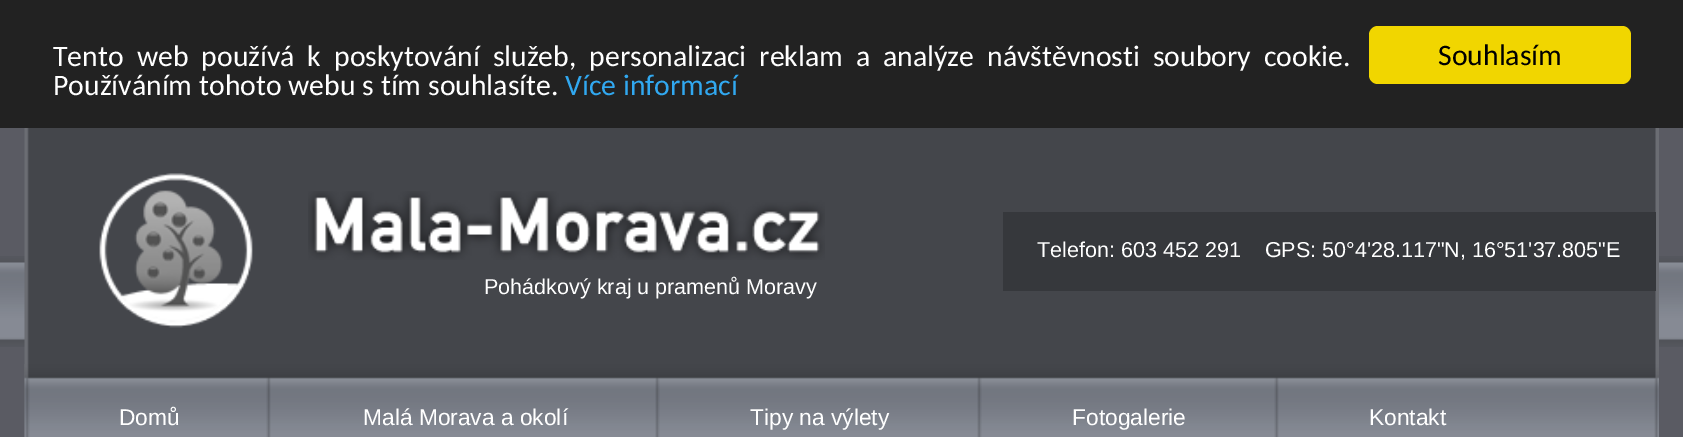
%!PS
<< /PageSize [1683 437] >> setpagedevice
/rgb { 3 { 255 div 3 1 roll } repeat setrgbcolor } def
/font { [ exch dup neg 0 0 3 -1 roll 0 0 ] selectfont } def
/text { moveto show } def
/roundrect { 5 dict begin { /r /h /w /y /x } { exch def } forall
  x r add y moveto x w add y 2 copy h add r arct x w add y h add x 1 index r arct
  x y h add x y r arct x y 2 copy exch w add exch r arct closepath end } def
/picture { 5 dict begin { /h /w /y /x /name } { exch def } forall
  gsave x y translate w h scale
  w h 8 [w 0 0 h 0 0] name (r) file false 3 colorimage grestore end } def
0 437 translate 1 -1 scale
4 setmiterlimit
90 91 99 rgb
0 0 1683 437 rectfill
(img_01.rgb) 0 256 1683 91 picture
34 34 34 rgb
0 0 1683 128 rectfill
241 214 0 rgb
1369 26 262 58 9 roundrect fill
(img_02.rgb) 24 128 1635 309 picture
(img_03.rgb) 99 173 154 155 picture
(img_04.rgb) 308 191 517 69 picture
54 56 60 rgb
1003 212 653 79 rectfill
(img_05.rgb) 29 364 1625 73 picture
(img_06.rgb) 24 364 6 73 picture
(img_07.rgb) 266 377 5 60 picture
(img_08.rgb) 655 377 5 60 picture
(img_08.rgb) 977 377 5 60 picture
(img_09.rgb) 1274 377 5 60 picture
(img_10.rgb) 1654 364 5 73 picture
/Carlito-Regular 29.75 font
255 255 255 rgb
53 66 moveto 6.25 0 32 (Tento web používá k poskytování služeb, personalizaci reklam a analýze návštěvnosti soubory cookie.) widthshow
(Používáním tohoto webu s tím souhlasíte.) 53 95 text
49 168 240 rgb
(Více informací) 565 95 text
0 0 0 rgb
(Souhlasím) 1438 65 text
/LiberationSans-Regular 21.55 font
255 255 255 rgb
(Telefon: 603 452 291    GPS: 50°4'28.117"N, 16°51'37.805"E) 1037 257 text
(Pohádkový kraj u pramenů Moravy) 484 294 text
/LiberationSans-Regular 22.75 font
(Domů) 119 425 text
(Malá Morava a okolí) 363 425 text
(Tipy na výlety) 750 425 text
(Fotogalerie) 1072 425 text
(Kontakt) 1369 425 text
showpage
